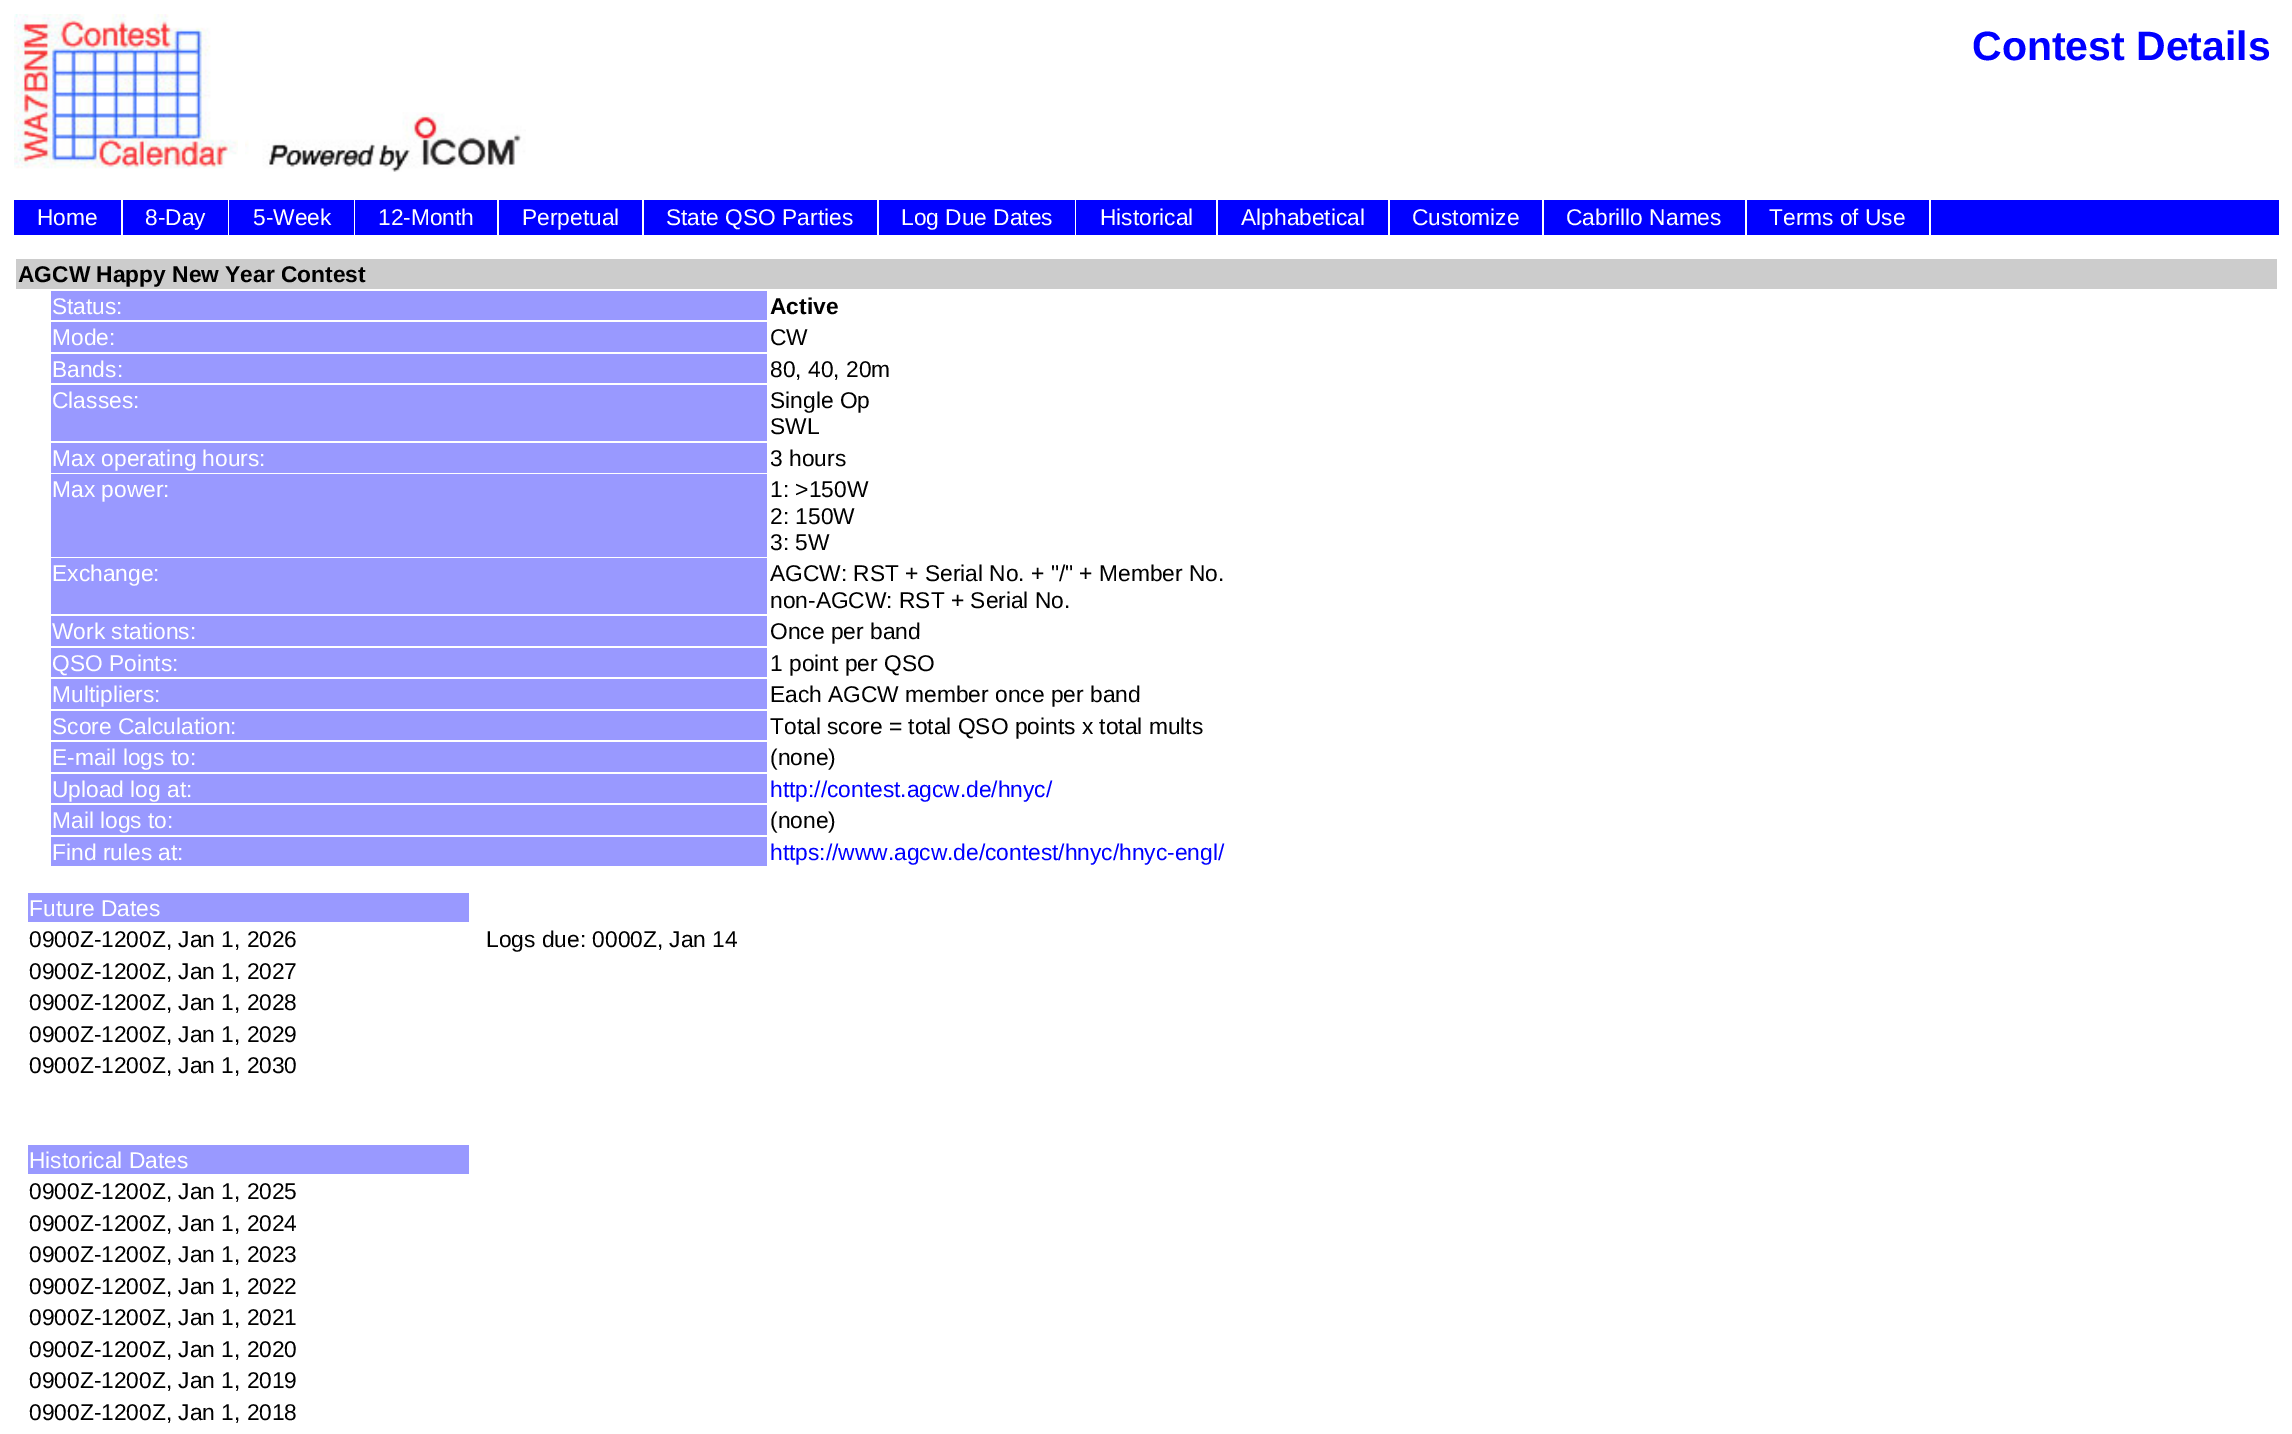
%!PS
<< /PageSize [2292 1434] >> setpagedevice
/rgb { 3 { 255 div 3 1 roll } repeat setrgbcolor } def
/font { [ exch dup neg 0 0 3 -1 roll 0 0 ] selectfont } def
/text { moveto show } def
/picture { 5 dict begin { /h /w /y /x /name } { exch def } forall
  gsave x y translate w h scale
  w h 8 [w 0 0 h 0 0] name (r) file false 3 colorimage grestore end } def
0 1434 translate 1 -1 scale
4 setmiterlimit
255 255 255 rgb
0 0 2292 1434 rectfill
(img_01.rgb) 14 14 224 155 picture
(img_02.rgb) 245 112 281 60 picture
0 0 255 rgb
14 200 2265 35 rectfill
255 255 255 rgb
121 200 2 35 rectfill
228 200 1 35 rectfill
354 200 1 35 rectfill
497 200 2 35 rectfill
642 200 2 35 rectfill
877 200 2 35 rectfill
1075 200 1 35 rectfill
1216 200 2 35 rectfill
1388 200 2 35 rectfill
1542 200 2 35 rectfill
1745 200 2 35 rectfill
1929 200 2 35 rectfill
204 204 204 rgb
16 259 2261 30 rectfill
153 153 255 rgb
51 291 716 29 rectfill
51 322 716 30 rectfill
51 354 716 29 rectfill
51 385 716 56 rectfill
51 443 716 30 rectfill
51 474 716 83 rectfill
51 558 716 56 rectfill
51 616 716 30 rectfill
51 648 716 29 rectfill
51 679 716 30 rectfill
51 711 716 29 rectfill
51 742 716 30 rectfill
51 774 716 29 rectfill
51 805 716 30 rectfill
51 837 716 29 rectfill
28 893 441 29 rectfill
28 1145 441 29 rectfill
/LiberationSans-Bold 41 font
0 0 255 rgb
(Contest Details) 1972 60 text
/LiberationSans-Regular 22.75 font
255 255 255 rgb
(Home) 37 225 text
(8-Day) 145 225 text
(5-Week) 253 225 text
(12-Month) 378 225 text
(Perpetual) 522 225 text
(State QSO Parties) 666 225 text
(Log Due Dates) 901 225 text
(Historical) 1100 225 text
(Alphabetical) 1241 225 text
(Customize) 1412 225 text
(Cabrillo Names) 1566 225 text
(Terms of Use) 1769 225 text
/LiberationSans-Bold 22.75 font
0 0 0 rgb
(AGCW Happy New Year Contest) 18 282 text
/LiberationSans-Regular 22.75 font
255 255 255 rgb
(Status:) 52 314 text
/LiberationSans-Bold 22.75 font
0 0 0 rgb
(Active) 770 314 text
/LiberationSans-Regular 22.75 font
255 255 255 rgb
(Mode:) 52 345 text
0 0 0 rgb
(CW) 770 345 text
255 255 255 rgb
(Bands:) 52 377 text
0 0 0 rgb
(80, 40, 20m) 770 377 text
255 255 255 rgb
(Classes:) 52 408 text
0 0 0 rgb
(Single Op) 770 408 text
(SWL) 770 434 text
255 255 255 rgb
(Max operating hours:) 52 466 text
0 0 0 rgb
(3 hours) 770 466 text
255 255 255 rgb
(Max power:) 52 497 text
0 0 0 rgb
(1: >150W) 770 497 text
(2: 150W) 770 524 text
(3: 5W) 770 550 text
255 255 255 rgb
(Exchange:) 52 581 text
0 0 0 rgb
(AGCW: RST + Serial No. + "/" + Member No.) 770 581 text
(non-AGCW: RST + Serial No.) 770 608 text
255 255 255 rgb
(Work stations:) 52 639 text
0 0 0 rgb
(Once per band) 770 639 text
255 255 255 rgb
(QSO Points:) 52 671 text
0 0 0 rgb
(1 point per QSO) 770 671 text
255 255 255 rgb
(Multipliers:) 52 702 text
0 0 0 rgb
(Each AGCW member once per band) 770 702 text
255 255 255 rgb
(Score Calculation:) 52 734 text
0 0 0 rgb
(Total score = total QSO points x total mults) 770 734 text
255 255 255 rgb
(E-mail logs to:) 52 765 text
0 0 0 rgb
(\(none\)) 770 765 text
255 255 255 rgb
(Upload log at:) 52 797 text
0 0 255 rgb
(http://contest.agcw.de/hnyc/) 770 797 text
255 255 255 rgb
(Mail logs to:) 52 828 text
0 0 0 rgb
(\(none\)) 770 828 text
255 255 255 rgb
(Find rules at:) 52 860 text
0 0 255 rgb
(https://www.agcw.de/contest/hnyc/hnyc-engl/) 770 860 text
255 255 255 rgb
(Future Dates) 29 916 text
0 0 0 rgb
(0900Z-1200Z, Jan 1, 2026) 29 947 text
(Logs due: 0000Z, Jan 14) 486 947 text
(0900Z-1200Z, Jan 1, 2027) 29 979 text
(0900Z-1200Z, Jan 1, 2028) 29 1010 text
(0900Z-1200Z, Jan 1, 2029) 29 1042 text
(0900Z-1200Z, Jan 1, 2030) 29 1073 text
255 255 255 rgb
(Historical Dates) 29 1168 text
0 0 0 rgb
(0900Z-1200Z, Jan 1, 2025) 29 1199 text
(0900Z-1200Z, Jan 1, 2024) 29 1231 text
(0900Z-1200Z, Jan 1, 2023) 29 1262 text
(0900Z-1200Z, Jan 1, 2022) 29 1294 text
(0900Z-1200Z, Jan 1, 2021) 29 1325 text
(0900Z-1200Z, Jan 1, 2020) 29 1357 text
(0900Z-1200Z, Jan 1, 2019) 29 1388 text
(0900Z-1200Z, Jan 1, 2018) 29 1420 text
showpage
